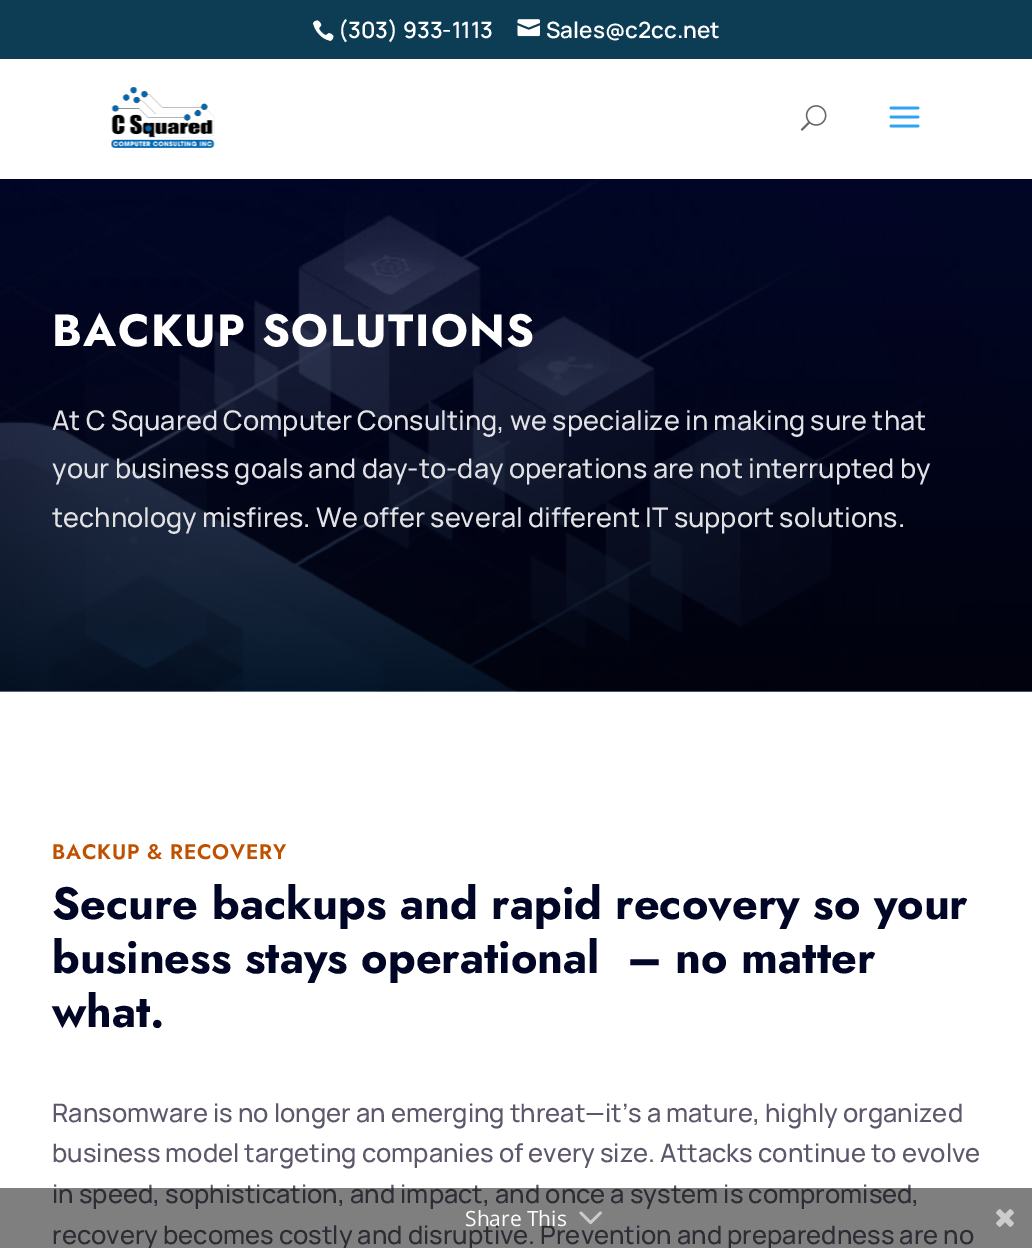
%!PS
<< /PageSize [1032 1248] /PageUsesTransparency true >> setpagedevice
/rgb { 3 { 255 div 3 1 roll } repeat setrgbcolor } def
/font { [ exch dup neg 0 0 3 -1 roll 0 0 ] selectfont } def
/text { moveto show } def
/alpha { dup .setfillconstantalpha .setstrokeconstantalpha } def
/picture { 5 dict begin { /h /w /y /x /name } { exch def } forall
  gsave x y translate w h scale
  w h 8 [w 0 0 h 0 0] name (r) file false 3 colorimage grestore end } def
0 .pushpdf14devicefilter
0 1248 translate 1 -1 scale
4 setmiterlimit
255 255 255 rgb
0 0 1032 1248 rectfill
13 60 85 rgb
0 0 1032 59 rectfill
(img_01.rgb) 312 20 22 21 picture
(img_02.rgb) 517 19 23 18 picture
(img_06.rgb) 0 179 1032 513 picture
0.1 alpha
0 0 0 rgb
0 179 1032 1 rectfill
1 alpha
(img_03.rgb) 110 87 105 61 picture
(img_04.rgb) 800 105 27 26 picture
(img_05.rgb) 889 106 31 22 picture
/Manrope-SemiBold 22.5 font
255 255 255 rgb
(\(303\) 933-1113) 338 38 text
(Sales@c2cc.net) 546 38 text
/Jost-Bold 45 font
52 346 moveto 1.5 0 (BACKUP SOLUTIONS) ashow
/Manrope-Medium 27 font
225 226 229 rgb
(At C Squared Computer Consulting, we specialize in making sure that) 52 430 text
(your business goals and day-to-day operations are not interrupted by) 52 478 text
(technology misfires. We offer several different IT support solutions.) 52 527 text
/Jost-SemiBold 21 font
190 80 0 rgb
52 859 moveto 0.75 0 (BACKUP & RECOVERY) ashow
/Jost-Bold 45 font
2 6 38 rgb
(Secure backups and rapid recovery so your) 52 919 text
(business stays operational  – no matter) 52 973 text
(what.) 52 1027 text
/Manrope-Medium 25.5 font
94 86 106 rgb
(Ransomware is no longer an emerging threat—it’s a mature, highly organized) 52 1122 text
(business model targeting companies of every size. Attacks continue to evolve) 52 1162 text
(in speed, sophistication, and impact, and once a system is compromised,) 52 1203 text
(recovery becomes costly and disruptive. Prevention and preparedness are no) 52 1244 text
0.5 alpha
0 0 0 rgb
0 1188 1032 60 rectfill
/OpenSans-Regular 21 font
1 alpha
255 255 255 rgb
(Share This) 465 1226 text
(img_07.rgb) 579 1211 23 14 picture
(img_08.rgb) 996 1209 18 18 picture
.poppdf14devicefilter showpage
